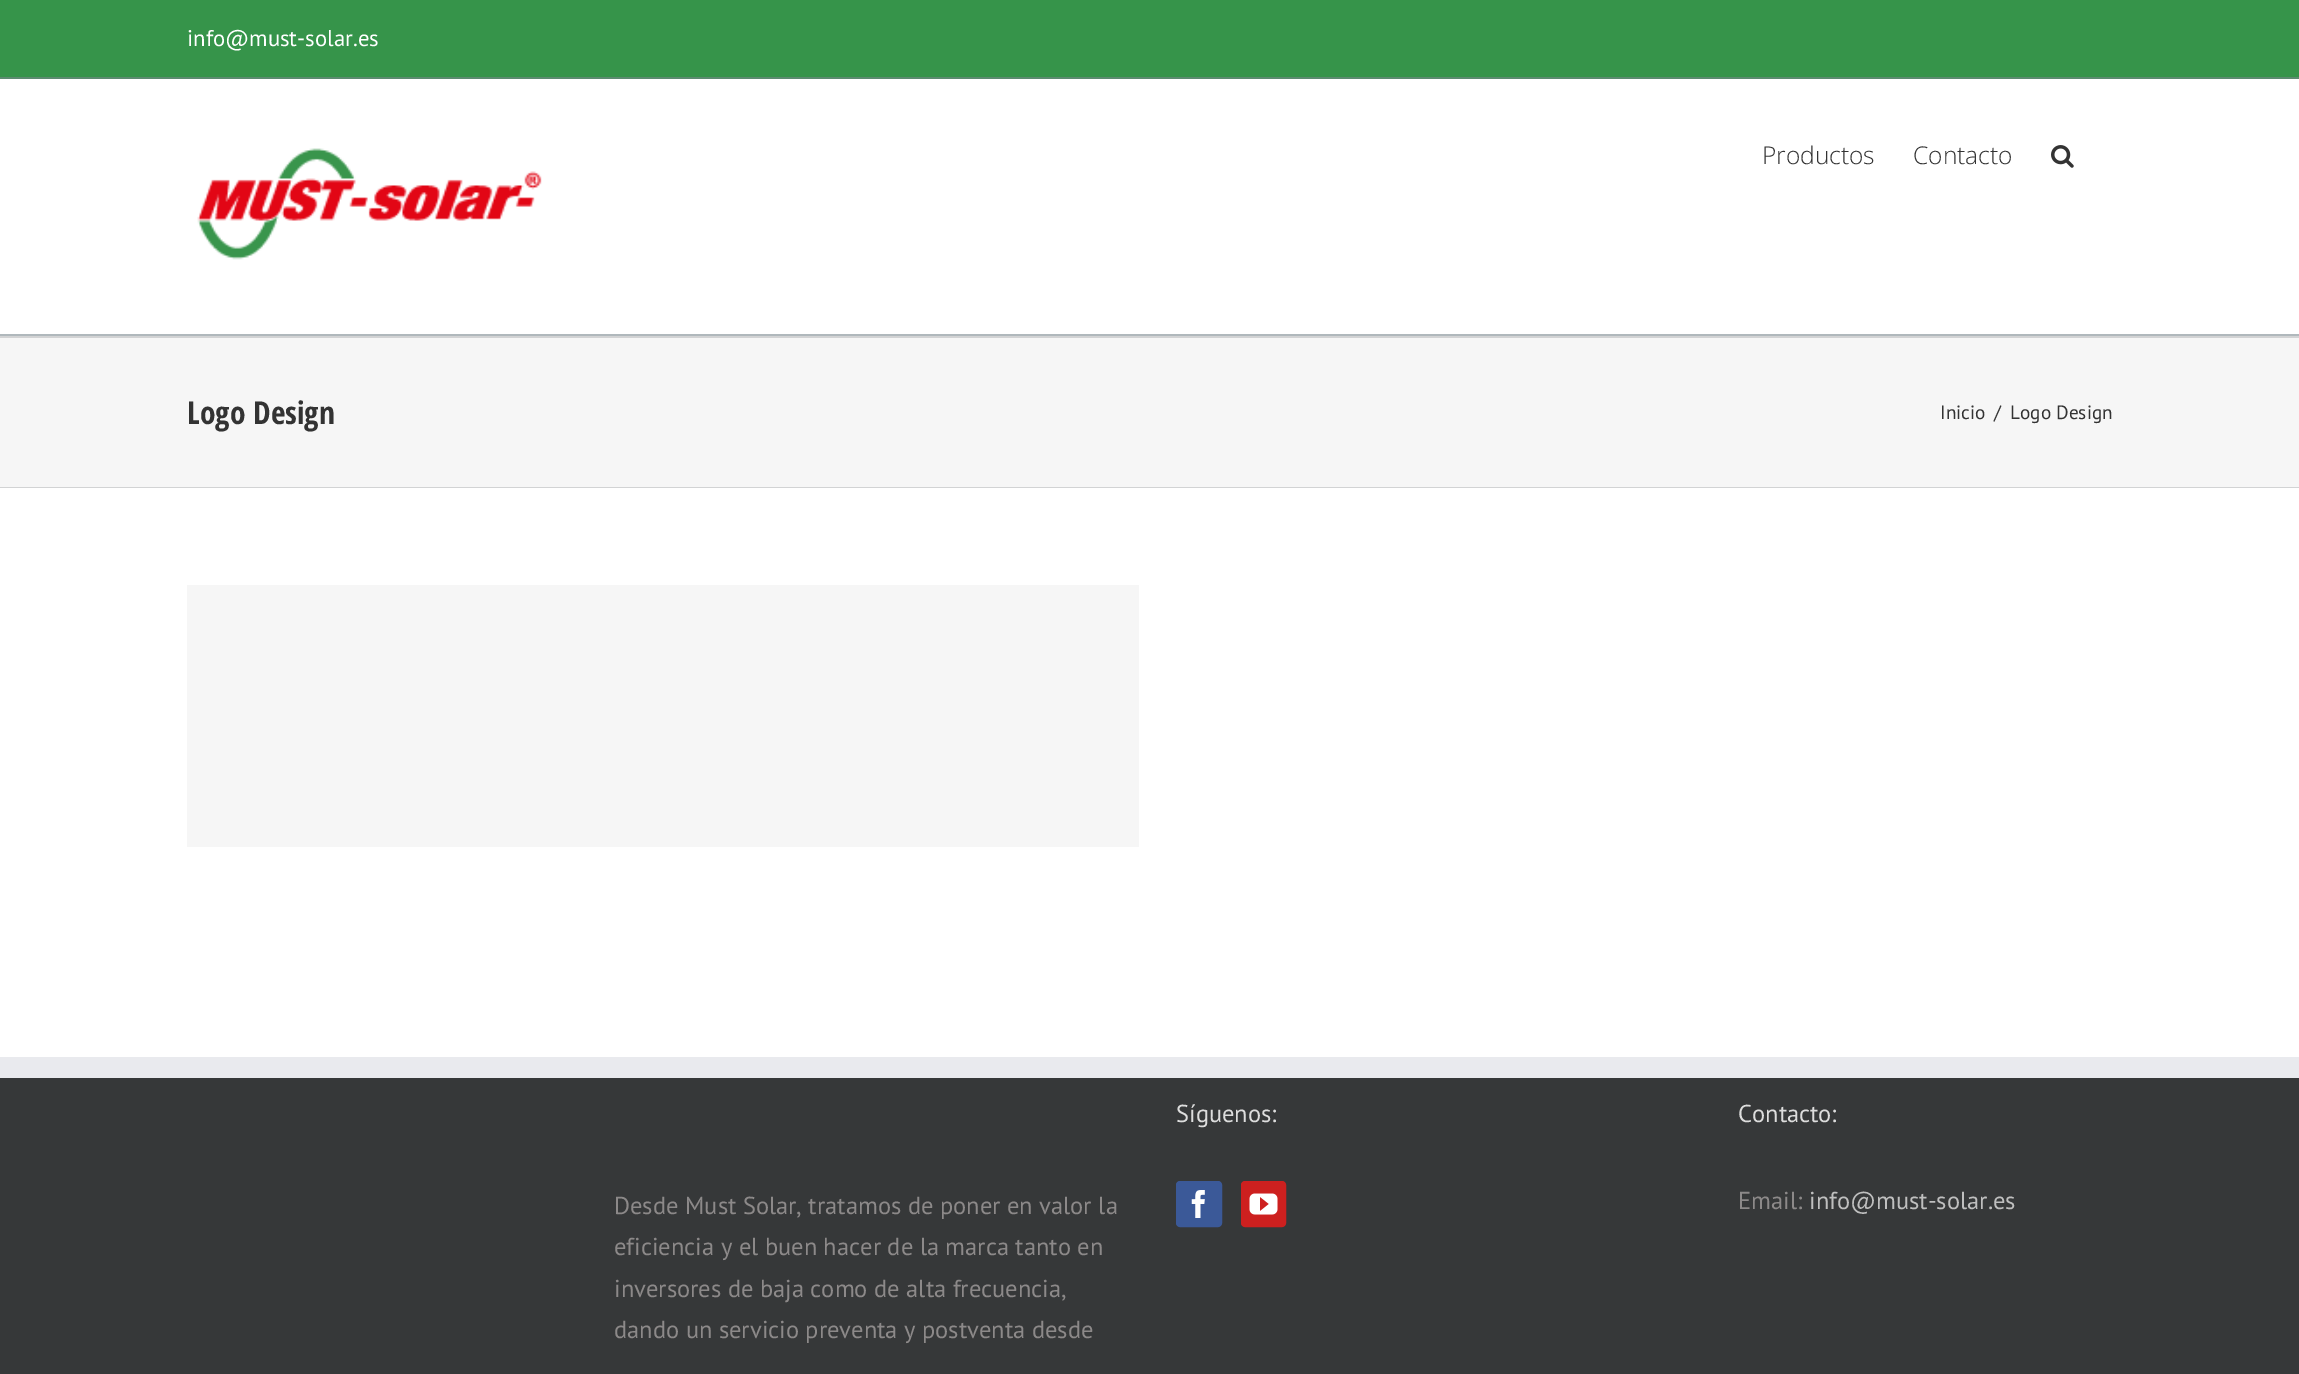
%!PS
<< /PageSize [2299 1374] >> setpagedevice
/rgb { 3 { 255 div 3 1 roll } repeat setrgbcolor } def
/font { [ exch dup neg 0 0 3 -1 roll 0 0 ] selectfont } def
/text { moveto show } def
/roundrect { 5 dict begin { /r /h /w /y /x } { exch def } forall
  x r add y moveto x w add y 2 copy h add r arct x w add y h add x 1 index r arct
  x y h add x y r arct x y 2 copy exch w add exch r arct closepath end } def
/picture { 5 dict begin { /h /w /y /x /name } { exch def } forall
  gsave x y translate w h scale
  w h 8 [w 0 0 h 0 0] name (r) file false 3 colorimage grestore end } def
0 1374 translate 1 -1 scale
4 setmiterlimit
255 255 255 rgb
0 0 2299 1374 rectfill
54 148 74 rgb
0 0 2299 77 rectfill
92 139 112 rgb
0 77 2299 2 rectfill
176 184 188 rgb
0 334 2299 2 rectfill
(img_01.rgb) 197 148 345 112 picture
(img_02.rgb) 2051 145 23 23 picture
246 246 246 rgb
0 338 2299 149 rectfill
210 211 212 rgb
0 336 2299 2 rectfill
0 487 2299 1 rectfill
246 246 246 rgb
187 585 952 262 rectfill
54 56 57 rgb
0 1078 2299 296 rectfill
233 234 238 rgb
0 1057 2299 21 rectfill
59 89 152 rgb
1177 1182 44 44 3 roundrect gsave fill grestore
2 setlinewidth
stroke
(img_03.rgb) 1191 1190 14 28 picture
205 32 31 rgb
1242 1182 43 44 3 roundrect gsave fill grestore
stroke
(img_04.rgb) 1249 1193 29 22 picture
/PTSans-Regular 22.75 font
255 255 255 rgb
(info@must-solar.es) 187 46 text
/OpenSans-Light 24.5 font
51 51 51 rgb
(Productos) 1762 164 text
(Contacto) 1913 164 text
/OpenSansCondensed-Bold 31.5 font
(Logo Design) 187 424 text
/PTSans-Regular 19.25 font
(Inicio) 1940 419 text
(/) 1994 419 text
(Logo Design) 2010 419 text
/PTSans-Regular 24.5 font
221 221 221 rgb
(Síguenos:) 1176 1122 text
(Contacto:) 1738 1122 text
140 137 137 rgb
(Email:) 1738 1209 text
191 191 191 rgb
(info@must-solar.es) 1809 1209 text
140 137 137 rgb
(Desde Must Solar, tratamos de poner en valor la) 614 1214 text
(eficiencia y el buen hacer de la marca tanto en) 614 1255 text
(inversores de baja como de alta frecuencia,) 614 1297 text
(dando un servicio preventa y postventa desde) 614 1338 text
showpage
